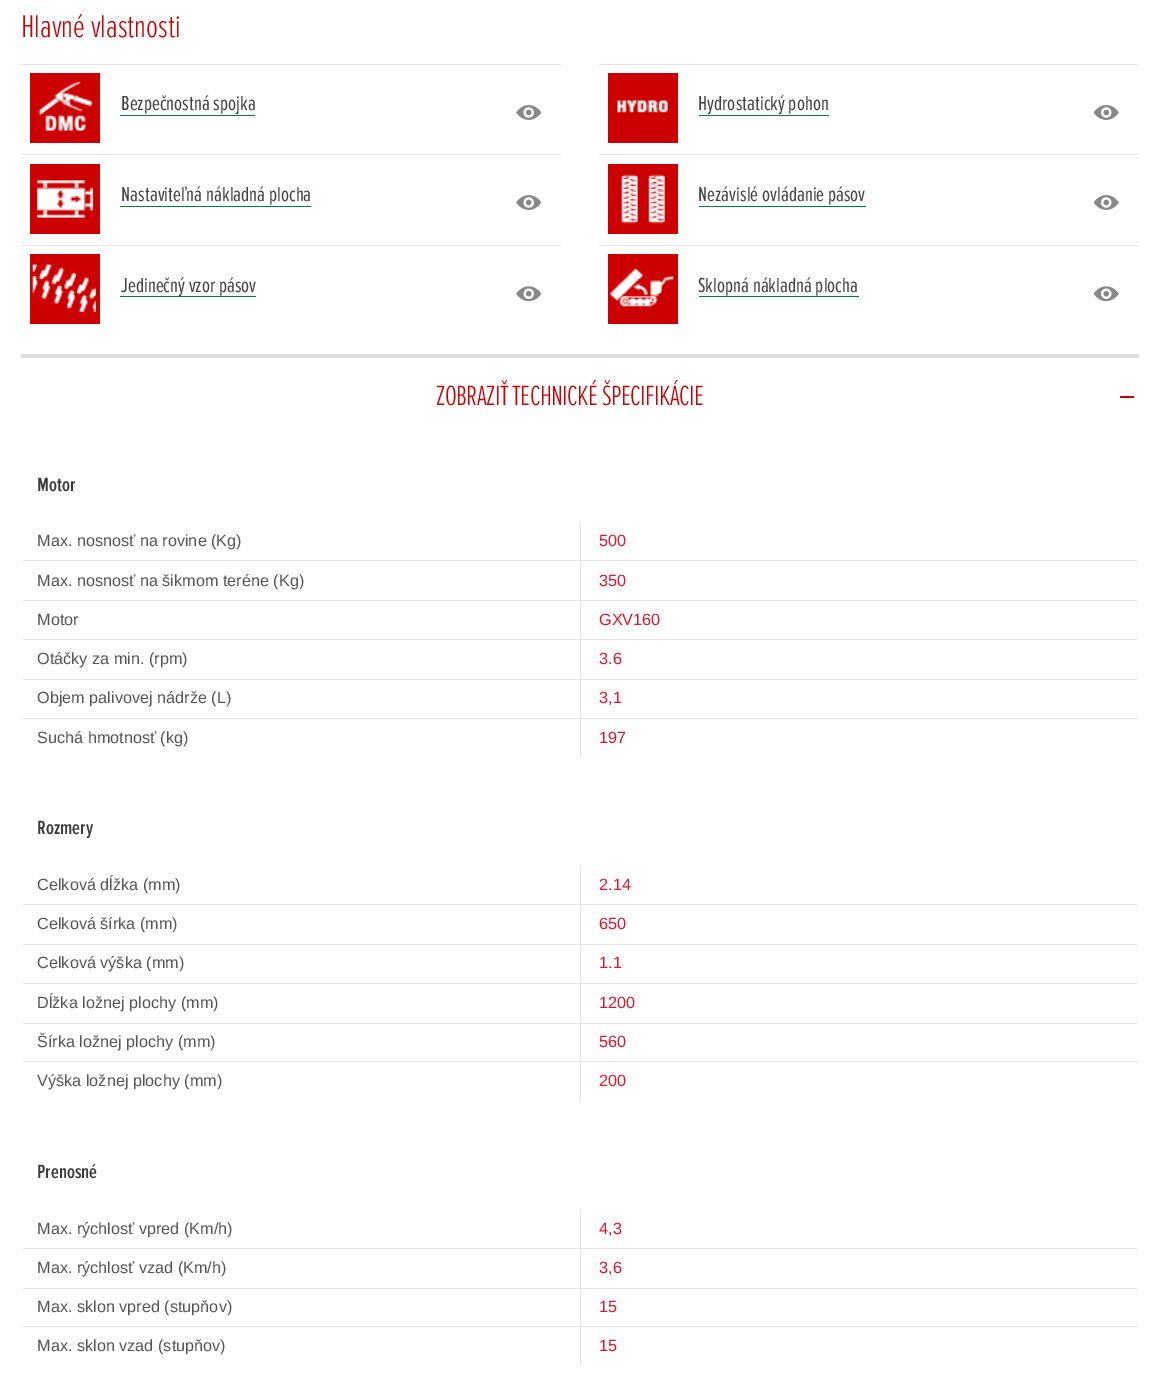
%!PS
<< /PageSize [1159 1390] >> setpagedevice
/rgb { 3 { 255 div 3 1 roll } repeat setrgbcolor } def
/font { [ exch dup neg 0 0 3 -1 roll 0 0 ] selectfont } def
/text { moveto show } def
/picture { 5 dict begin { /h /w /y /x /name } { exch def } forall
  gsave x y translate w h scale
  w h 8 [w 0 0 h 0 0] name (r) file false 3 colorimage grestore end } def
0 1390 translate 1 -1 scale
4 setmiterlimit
255 255 255 rgb
0 0 1159 1390 rectfill
228 228 228 rgb
21 64 540 1 rectfill
204 0 0 rgb
30 73 70 70 rectfill
(img_01.rgb) 38 81 55 50 picture
0 128 62 rgb
120 115 135 1 rectfill
(img_02.rgb) 516 105 25 15 picture
228 228 228 rgb
599 64 540 1 rectfill
204 0 0 rgb
608 73 70 70 rectfill
(img_03.rgb) 617 100 51 13 picture
0 128 62 rgb
699 115 130 1 rectfill
(img_04.rgb) 1094 105 25 15 picture
228 228 228 rgb
21 154 540 1 rectfill
204 0 0 rgb
30 164 70 70 rectfill
(img_05.rgb) 37 180 57 38 picture
0 128 62 rgb
120 206 191 1 rectfill
(img_02.rgb) 516 195 25 15 picture
228 228 228 rgb
599 154 540 1 rectfill
204 0 0 rgb
608 164 70 70 rectfill
(img_06.rgb) 621 174 44 50 picture
0 128 62 rgb
699 206 167 1 rectfill
(img_04.rgb) 1094 195 25 15 picture
228 228 228 rgb
21 245 540 1 rectfill
204 0 0 rgb
30 254 70 70 rectfill
(img_07.rgb) 32 264 64 49 picture
0 128 62 rgb
120 296 136 1 rectfill
(img_08.rgb) 516 286 25 16 picture
228 228 228 rgb
599 245 540 1 rectfill
204 0 0 rgb
608 254 70 70 rectfill
(img_09.rgb) 610 268 64 39 picture
0 128 62 rgb
699 296 160 1 rectfill
(img_10.rgb) 1094 286 25 16 picture
221 221 221 rgb
21 354 1118 4 rectfill
204 0 0 rgb
1120 396 14 2 rectfill
228 228 228 rgb
580 718 1 40 rectfill
580 718 558 1 rectfill
580 679 1 40 rectfill
580 679 558 1 rectfill
580 639 1 41 rectfill
580 639 558 1 rectfill
580 600 1 40 rectfill
580 600 558 1 rectfill
580 560 1 41 rectfill
580 560 558 1 rectfill
580 523 1 38 rectfill
23 560 558 1 rectfill
23 600 558 1 rectfill
23 639 558 1 rectfill
23 679 558 1 rectfill
23 718 558 1 rectfill
580 1061 1 40 rectfill
580 1061 558 1 rectfill
580 1023 1 40 rectfill
580 1023 558 1 rectfill
580 983 1 41 rectfill
580 983 558 1 rectfill
580 944 1 40 rectfill
580 944 558 1 rectfill
580 904 1 41 rectfill
580 904 558 1 rectfill
580 865 1 40 rectfill
23 904 558 1 rectfill
23 944 558 1 rectfill
23 983 558 1 rectfill
23 1023 558 1 rectfill
23 1061 558 1 rectfill
580 1326 1 40 rectfill
580 1326 558 1 rectfill
580 1288 1 40 rectfill
580 1288 558 1 rectfill
580 1248 1 41 rectfill
580 1248 558 1 rectfill
580 1209 1 40 rectfill
23 1248 558 1 rectfill
23 1288 558 1 rectfill
23 1326 558 1 rectfill
/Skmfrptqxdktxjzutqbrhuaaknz-Light 32.5 font
204 0 0 rgb
(Hlavné vlastnosti) 21 37 text
/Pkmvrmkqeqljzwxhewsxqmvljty-Regular 21.1 font
67 67 67 rgb
(Bezpečnostná spojka) 121 110 text
(Hydrostatický pohon) 698 110 text
(Nastaviteľná nákladná plocha) 121 201 text
(Nezávislé ovládanie pásov) 698 201 text
(Jedinečný vzor pásov) 121 292 text
(Sklopná nákladná plocha) 698 292 text
/Skmfrptqxdktxjzutqbrhuaaknz-Light 28.75 font
204 0 0 rgb
436 405 moveto -0.6 0 (ZOBRAZIŤ TECHNICKÉ ŠPECIFIKÁCIE) ashow
/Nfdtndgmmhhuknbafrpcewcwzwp-SemiBold 20 font
59 59 59 rgb
(Motor) 37 491 text
/LiberationSans-Regular 16.25 font
85 85 85 rgb
(Max. nosnosť na rovine \(Kg\)) 37 546 text
220 24 45 rgb
(500) 599 546 text
85 85 85 rgb
(Max. nosnosť na šikmom teréne \(Kg\)) 37 586 text
220 24 45 rgb
(350) 599 586 text
85 85 85 rgb
(Motor) 37 625 text
220 24 45 rgb
(GXV160) 599 625 text
85 85 85 rgb
(Otáčky za min. \(rpm\)) 37 664 text
220 24 45 rgb
(3.6) 599 664 text
85 85 85 rgb
(Objem palivovej nádrže \(L\)) 37 703 text
220 24 45 rgb
(3,1) 599 703 text
85 85 85 rgb
(Suchá hmotnosť \(kg\)) 37 743 text
220 24 45 rgb
(197) 599 743 text
/Nfdtndgmmhhuknbafrpcewcwzwp-SemiBold 20 font
59 59 59 rgb
(Rozmery) 37 834 text
/LiberationSans-Regular 16.25 font
85 85 85 rgb
(Celková dĺžka \(mm\)) 37 890 text
220 24 45 rgb
(2.14) 599 890 text
85 85 85 rgb
(Celková šírka \(mm\)) 37 929 text
220 24 45 rgb
(650) 599 929 text
85 85 85 rgb
(Celková výška \(mm\)) 37 968 text
220 24 45 rgb
(1.1) 599 968 text
85 85 85 rgb
(Dĺžka ložnej plochy \(mm\)) 37 1008 text
220 24 45 rgb
(1200) 599 1008 text
85 85 85 rgb
(Šírka ložnej plochy \(mm\)) 37 1047 text
220 24 45 rgb
(560) 599 1047 text
85 85 85 rgb
(Výška ložnej plochy \(mm\)) 37 1086 text
220 24 45 rgb
(200) 599 1086 text
/Nfdtndgmmhhuknbafrpcewcwzwp-SemiBold 20 font
59 59 59 rgb
(Prenosné) 37 1178 text
/LiberationSans-Regular 16.25 font
85 85 85 rgb
(Max. rýchlosť vpred \(Km/h\)) 37 1234 text
220 24 45 rgb
(4,3) 599 1234 text
85 85 85 rgb
(Max. rýchlosť vzad \(Km/h\)) 37 1273 text
220 24 45 rgb
(3,6) 599 1273 text
85 85 85 rgb
(Max. sklon vpred \(stupňov\)) 37 1312 text
220 24 45 rgb
(15) 599 1312 text
85 85 85 rgb
(Max. sklon vzad \(stupňov\)) 37 1351 text
220 24 45 rgb
(15) 599 1351 text
showpage
